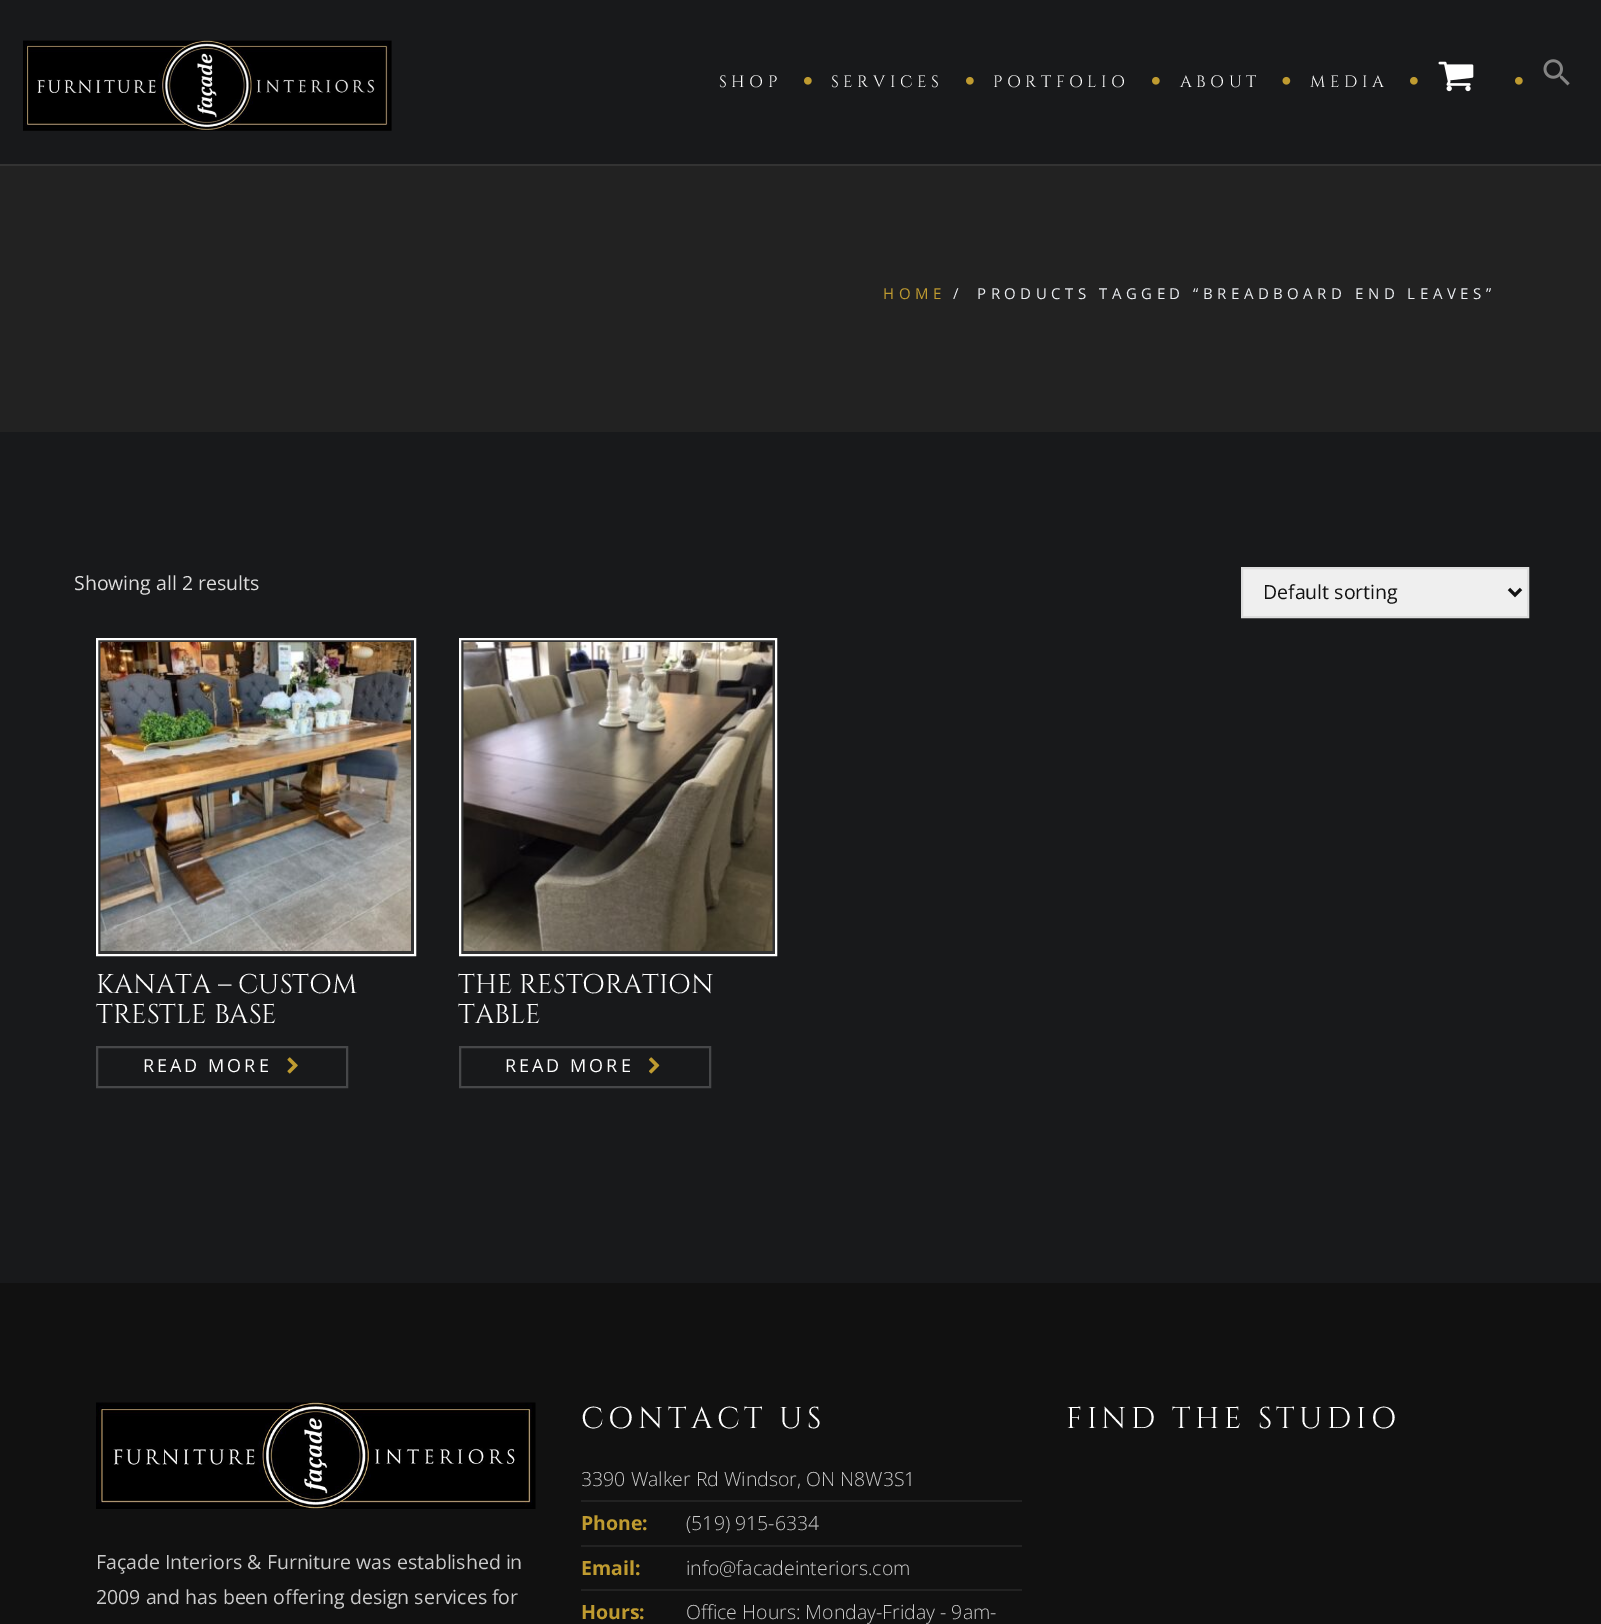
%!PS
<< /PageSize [1601 1624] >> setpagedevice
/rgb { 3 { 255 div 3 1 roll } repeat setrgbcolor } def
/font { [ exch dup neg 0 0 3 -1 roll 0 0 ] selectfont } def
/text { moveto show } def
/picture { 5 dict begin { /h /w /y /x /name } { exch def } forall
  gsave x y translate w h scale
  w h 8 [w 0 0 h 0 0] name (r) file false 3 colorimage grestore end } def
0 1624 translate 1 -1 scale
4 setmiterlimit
34 34 34 rgb
0 0 1601 1624 rectfill
24 25 27 rgb
0 0 1601 164 rectfill
51 51 51 rgb
0 164 1601 2 rectfill
(img_01.rgb) 23 40 369 91 picture
(img_02.rgb) 804 76 8 9 picture
(img_02.rgb) 966 76 8 9 picture
(img_02.rgb) 1152 76 8 9 picture
(img_03.rgb) 1282 76 9 9 picture
(img_02.rgb) 1410 76 8 9 picture
(img_04.rgb) 1438 61 36 31 picture
(img_02.rgb) 1515 76 8 9 picture
(img_05.rgb) 1543 59 27 27 picture
24 25 27 rgb
0 432 1601 851 rectfill
239 239 239 rgb
1242 568 moveto 286 0 rlineto 0 49 rlineto -286 0 rlineto closepath gsave fill grestore
221 221 221 rgb
2 setlinewidth
stroke
17 17 17 rgb
3 setlinewidth
1509 589 moveto 6 6 rlineto 6 -6 rlineto stroke
51 51 51 rgb
97 639 moveto 318 0 rlineto 0 316 rlineto -318 0 rlineto closepath gsave fill grestore
255 255 255 rgb
2 setlinewidth
stroke
(img_06.rgb) 100 642 311 309 picture
70 71 73 rgb
97 1047 250 40 rectstroke
(img_07.rgb) 287 1057 11 17 picture
51 51 51 rgb
460 639 moveto 316 0 rlineto 0 316 rlineto -316 0 rlineto closepath gsave fill grestore
255 255 255 rgb
stroke
(img_08.rgb) 463 642 310 309 picture
70 71 73 rgb
460 1047 250 40 rectstroke
(img_09.rgb) 649 1057 11 17 picture
17 17 17 rgb
0 1283 1601 341 rectfill
34 34 34 rgb
581 1500 441 2 rectfill
581 1545 441 2 rectfill
581 1589 441 2 rectfill
(img_10.rgb) 96 1402 440 107 picture
/Cinzel-Regular 16.5 font
255 255 255 rgb
719 87 moveto 4.5 0 (SHOP) ashow
831 87 moveto 4.5 0 (SERVICES) ashow
993 87 moveto 4.5 0 (PORTFOLIO) ashow
1180 87 moveto 4.5 0 (ABOUT) ashow
1310 87 moveto 4.5 0 (MEDIA) ashow
/OpenSans-Regular 15 font
191 155 48 rgb
883 299 moveto 4.5 0 (HOME) ashow
236 239 243 rgb
953 299 moveto 4.5 0 (/) ashow
977 299 moveto 4.5 0 (PRODUCTS TAGGED “BREADBOARD END LEAVES”) ashow
/OpenSans-Regular 19.5 font
221 221 221 rgb
(Showing all 2 results) 74 590 text
17 17 17 rgb
(Default sorting) 1263 599 text
/Cinzel-Regular 27 font
255 255 255 rgb
(KANATA – CUSTOM) 96 993 text
(TRESTLE BASE) 96 1023 text
/OpenSans-Regular 18 font
143 1072 moveto 3 0 (READ MORE) ashow
/Cinzel-Regular 27 font
(THE RESTORATION) 458 993 text
(TABLE) 458 1023 text
/OpenSans-Regular 18 font
505 1072 moveto 3 0 (READ MORE) ashow
/Cinzel-Regular 30 font
581 1428 moveto 4.5 0 (CONTACT US) ashow
/OpenSans-Light 19.5 font
204 204 204 rgb
(3390 Walker Rd Windsor, ON N8W3S1) 581 1486 text
/OpenSans-Bold 19.5 font
191 155 48 rgb
(Phone:) 581 1530 text
/OpenSans-Light 19.5 font
204 204 204 rgb
(\(519\) 915-6334) 686 1530 text
/OpenSans-Bold 19.5 font
191 155 48 rgb
(Email:) 581 1575 text
/OpenSans-Light 19.5 font
204 204 204 rgb
(info@facadeinteriors.com) 686 1575 text
/OpenSans-Bold 19.5 font
191 155 48 rgb
(Hours:) 581 1619 text
/OpenSans-Light 19.5 font
204 204 204 rgb
(Office Hours: Monday-Friday - 9am-) 686 1619 text
/Cinzel-Regular 30 font
255 255 255 rgb
1066 1428 moveto 4.5 0 (FIND THE STUDIO) ashow
/OpenSans-Regular 19.5 font
204 204 204 rgb
(Façade Interiors & Furniture was established in) 96 1569 text
(2009 and has been offering design services for) 96 1604 text
showpage
